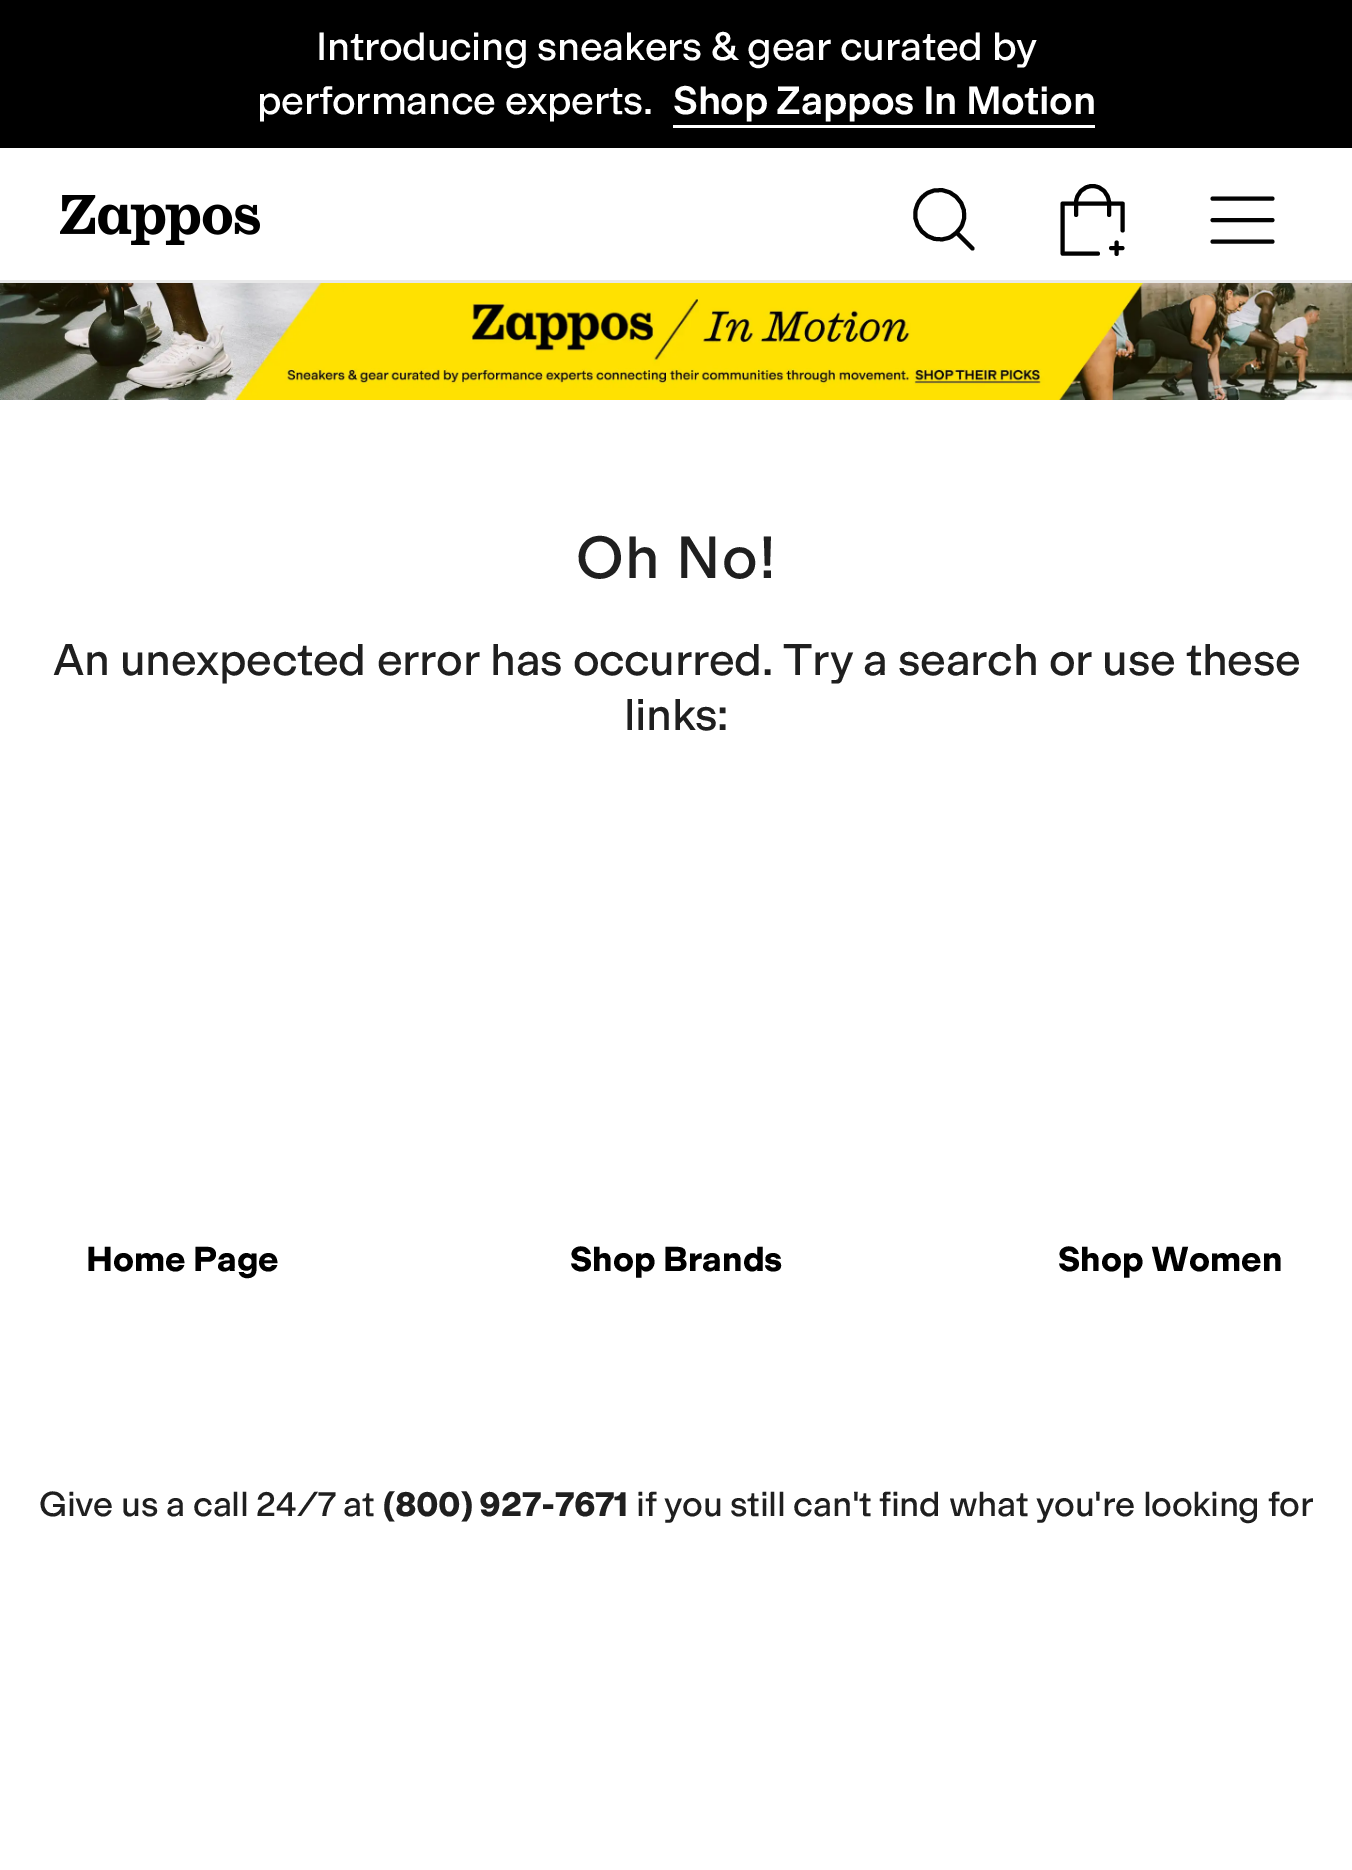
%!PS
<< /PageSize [1352 1870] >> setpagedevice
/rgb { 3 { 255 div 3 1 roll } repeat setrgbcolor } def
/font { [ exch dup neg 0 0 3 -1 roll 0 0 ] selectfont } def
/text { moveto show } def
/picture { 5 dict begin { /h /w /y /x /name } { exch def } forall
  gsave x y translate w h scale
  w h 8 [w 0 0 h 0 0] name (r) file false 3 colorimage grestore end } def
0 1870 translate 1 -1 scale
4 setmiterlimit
255 255 255 rgb
0 0 1352 1870 rectfill
0 0 0 rgb
0 0 1352 148 rectfill
255 255 255 rgb
673 125 422 3 rectfill
233 233 233 rgb
0 280 1352 3 rectfill
(img_01.rgb) 60 195 200 50 picture
3 3 3 rgb
4 setlinewidth
1 setlinecap
1 setlinejoin
918.5 202.5 moveto -12 20.5 10 45 32 34.5 rcurveto 4.5 -2.5 8 -6 10.5 -10 rcurveto 13 -22.5 -14 -47 -35 -33 rcurveto -3 2 -6 5 -7.5 8.5 rcurveto stroke
0 setlinejoin
957 233 moveto 15.5 15.5 rlineto stroke
0 0 0 rgb
1 setlinejoin
1109 215 moveto 0 -12 rlineto 0 -9.5 -7.5 -17 -16.5 -17 rcurveto -9 0 -16.5 7.5 -16.5 17 rcurveto 0 12 rlineto 1111 248 moveto 11.5 0 rlineto 1116.5 242.5 moveto 0 11.5 rlineto stroke
1122.5 230.5 moveto 0 -27 rlineto -60 0 rlineto 0 50 rlineto 35.5 0 rlineto stroke
3 3 3 rgb
0 setlinejoin
1212.5 241.5 moveto 60 0 rlineto 1212.5 220 moveto 60 0 rlineto 1212.5 198.5 moveto 60 0 rlineto stroke
(img_02.rgb) 0 283 1352 117 picture
/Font-Regular 40 font
255 255 255 rgb
316 60 moveto -0.4 0 (Introducing sneakers & gear curated by) ashow
257 114 moveto -0.4 0 (performance experts.) ashow
/Font-Medium 40 font
673 114 moveto -0.4 0 (Shop Zappos In Motion) ashow
/Font-Regular 60 font
31 31 31 rgb
576 578 moveto 1.25 0 (Oh No!) ashow
/Font-Regular 45 font
53 675 moveto -0.35 0 (An unexpected error has occurred. Try a search or use these) ashow
624 730 moveto -0.35 0 (links:) ashow
/Font-Bold 35 font
0 0 0 rgb
(Home Page) 86 1271 text
(Shop Brands) 570 1271 text
(Shop Women) 1058 1271 text
/Font-Regular 35 font
31 31 31 rgb
39 1516 moveto -0.35 0 (Give us a call 24/7 at) ashow
/Font-Bold 35 font
383 1516 moveto -0.35 0 (\(800\) 927-7671) ashow
/Font-Regular 35 font
636 1516 moveto -0.35 0 (if you still can't find what you're looking for) ashow
showpage
